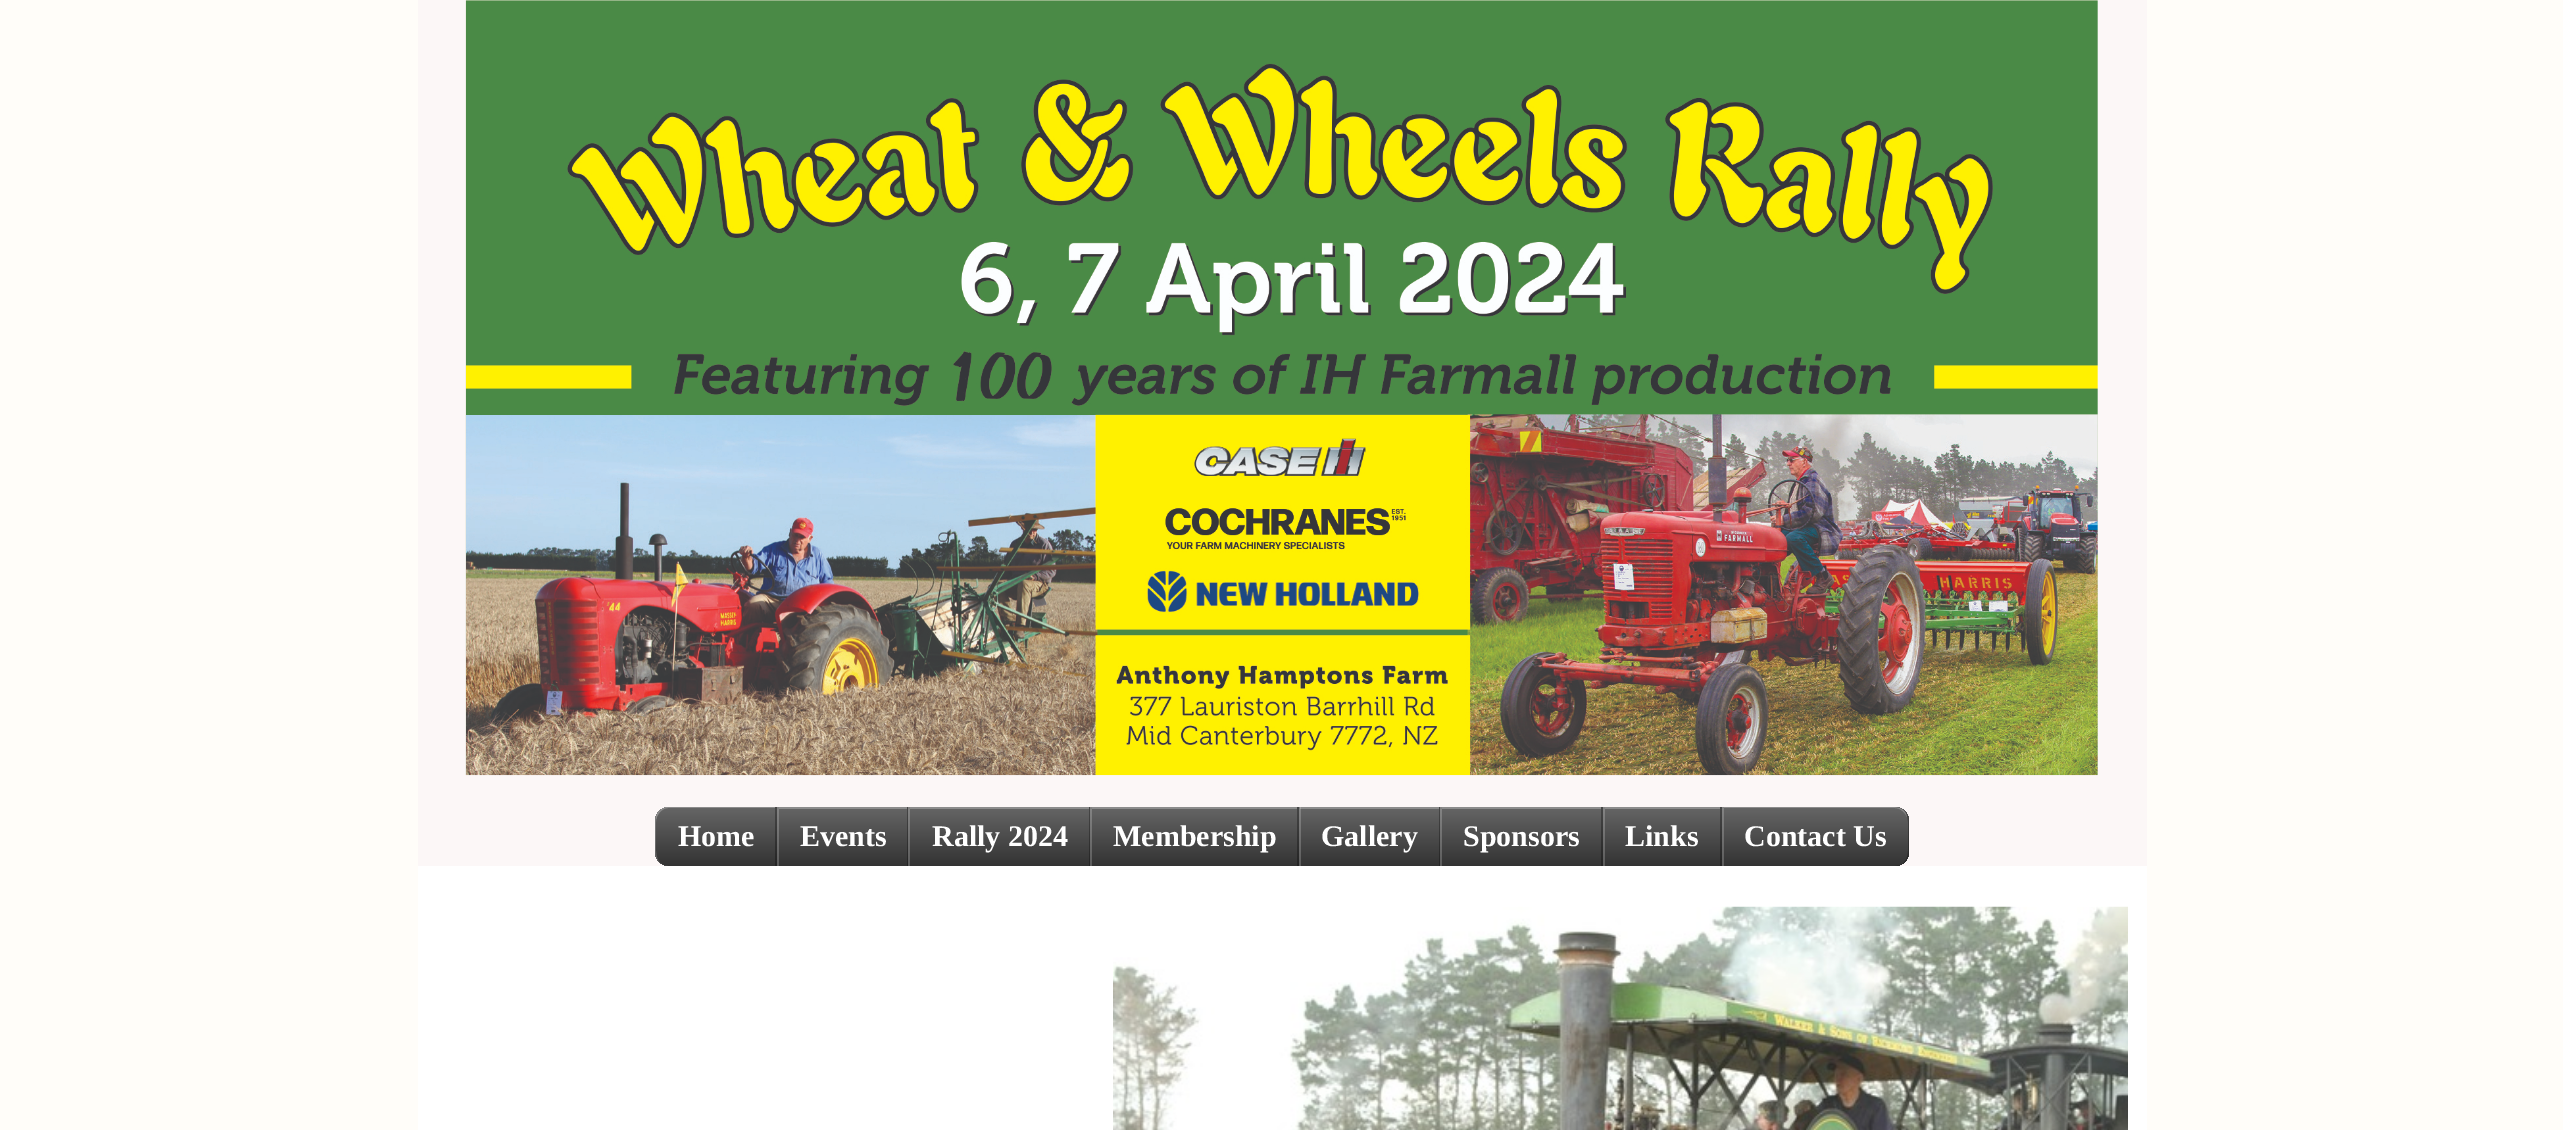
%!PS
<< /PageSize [2563 1130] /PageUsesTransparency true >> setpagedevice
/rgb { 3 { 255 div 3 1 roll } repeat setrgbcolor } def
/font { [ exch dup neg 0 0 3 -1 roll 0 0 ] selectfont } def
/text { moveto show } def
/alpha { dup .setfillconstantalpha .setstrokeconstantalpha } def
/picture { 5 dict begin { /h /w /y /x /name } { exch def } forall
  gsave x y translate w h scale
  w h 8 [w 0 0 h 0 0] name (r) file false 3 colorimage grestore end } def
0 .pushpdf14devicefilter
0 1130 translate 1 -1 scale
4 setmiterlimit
255 253 249 rgb
0 0 2563 1130 rectfill
252 247 247 rgb
418 0 1729 866 rectfill
(img_01.rgb) 465 0 1633 776 picture
gsave 669 807 moveto 108 0 rlineto 0 59 rlineto -108 0 rlineto -7.5 0 -14 -6.5 -14 -14 rcurveto 0 -31 rlineto 0 -7.5 6.5 -14 14 -14 rcurveto closepath clip newpath
<< /ShadingType 2 /ColorSpace /DeviceRGB /Coords [716 807 716 866] /Extend [true true] /Function << /FunctionType 2 /Domain [0 1] /C0 [0.4 0.4 0.4] /C1 [0.2 0.2 0.2] /N 1 >> >> shfill grestore
gsave 775 807 moveto 2 0 rlineto 0 59 rlineto -2 0 rlineto closepath clip newpath
<< /ShadingType 2 /ColorSpace /DeviceRGB /Coords [716 807 716 866] /Extend [true true] /Function << /FunctionType 2 /Domain [0 1] /C0 [0.278 0.278 0.278] /C1 [0.141 0.141 0.141] /N 1 >> >> shfill grestore
0.25 alpha
255 255 255 rgb
668 808 moveto 107 0 rlineto 0 58 rlineto 0 -59 rlineto -107 0 rlineto -6 0 -11 5 -12 12 rcurveto 2 -6 7 -11 12 -11 rcurveto closepath fill
0.2 alpha
668 807 moveto -15 0 -12 21 -12 29 rcurveto 0 9 -3 30 12 30 rcurveto -6 0 -12 -4 -14 -10 rcurveto 0 -39 rlineto 2 -6 8 -10 14 -10 rcurveto closepath fill
1 alpha
gsave 779 809 moveto 128 0 rlineto 0 57 rlineto -128 0 rlineto closepath clip newpath
<< /ShadingType 2 /ColorSpace /DeviceRGB /Coords [843 807 843 866] /Extend [true true] /Function << /FunctionType 2 /Domain [0 1] /C0 [0.4 0.4 0.4] /C1 [0.2 0.2 0.2] /N 1 >> >> shfill grestore
gsave 777 807 moveto 2 0 rlineto 0 59 rlineto -2 0 rlineto closepath clip newpath
<< /ShadingType 2 /ColorSpace /DeviceRGB /Coords [843 807 843 866] /Extend [true true] /Function << /FunctionType 2 /Domain [0 1] /C0 [0.522 0.522 0.522] /C1 [0.361 0.361 0.361] /N 1 >> >> shfill grestore
gsave 907 807 moveto 1 0 rlineto 0 59 rlineto -1 0 rlineto closepath clip newpath
<< /ShadingType 2 /ColorSpace /DeviceRGB /Coords [843 807 843 866] /Extend [true true] /Function << /FunctionType 2 /Domain [0 1] /C0 [0.278 0.278 0.278] /C1 [0.141 0.141 0.141] /N 1 >> >> shfill grestore
140 140 140 rgb
779 807 128 2 rectfill
gsave 910 809 moveto 179 0 rlineto 0 57 rlineto -179 0 rlineto closepath clip newpath
<< /ShadingType 2 /ColorSpace /DeviceRGB /Coords [999 807 999 866] /Extend [true true] /Function << /FunctionType 2 /Domain [0 1] /C0 [0.4 0.4 0.4] /C1 [0.2 0.2 0.2] /N 1 >> >> shfill grestore
gsave 908 807 moveto 2 0 rlineto 0 59 rlineto -2 0 rlineto closepath clip newpath
<< /ShadingType 2 /ColorSpace /DeviceRGB /Coords [999 807 999 866] /Extend [true true] /Function << /FunctionType 2 /Domain [0 1] /C0 [0.522 0.522 0.522] /C1 [0.361 0.361 0.361] /N 1 >> >> shfill grestore
gsave 1089 807 moveto 1 0 rlineto 0 59 rlineto -1 0 rlineto closepath clip newpath
<< /ShadingType 2 /ColorSpace /DeviceRGB /Coords [999 807 999 866] /Extend [true true] /Function << /FunctionType 2 /Domain [0 1] /C0 [0.278 0.278 0.278] /C1 [0.141 0.141 0.141] /N 1 >> >> shfill grestore
910 807 179 2 rectfill
gsave 1092 809 moveto 205 0 rlineto 0 57 rlineto -205 0 rlineto closepath clip newpath
<< /ShadingType 2 /ColorSpace /DeviceRGB /Coords [1194 807 1194 866] /Extend [true true] /Function << /FunctionType 2 /Domain [0 1] /C0 [0.4 0.4 0.4] /C1 [0.2 0.2 0.2] /N 1 >> >> shfill grestore
gsave 1090 807 moveto 2 0 rlineto 0 59 rlineto -2 0 rlineto closepath clip newpath
<< /ShadingType 2 /ColorSpace /DeviceRGB /Coords [1194 807 1194 866] /Extend [true true] /Function << /FunctionType 2 /Domain [0 1] /C0 [0.522 0.522 0.522] /C1 [0.361 0.361 0.361] /N 1 >> >> shfill grestore
gsave 1297 807 moveto 2 0 rlineto 0 59 rlineto -2 0 rlineto closepath clip newpath
<< /ShadingType 2 /ColorSpace /DeviceRGB /Coords [1194 807 1194 866] /Extend [true true] /Function << /FunctionType 2 /Domain [0 1] /C0 [0.278 0.278 0.278] /C1 [0.141 0.141 0.141] /N 1 >> >> shfill grestore
1092 807 205 2 rectfill
gsave 1301 809 moveto 138 0 rlineto 0 57 rlineto -138 0 rlineto closepath clip newpath
<< /ShadingType 2 /ColorSpace /DeviceRGB /Coords [1369 807 1369 866] /Extend [true true] /Function << /FunctionType 2 /Domain [0 1] /C0 [0.4 0.4 0.4] /C1 [0.2 0.2 0.2] /N 1 >> >> shfill grestore
gsave 1299 807 moveto 2 0 rlineto 0 59 rlineto -2 0 rlineto closepath clip newpath
<< /ShadingType 2 /ColorSpace /DeviceRGB /Coords [1369 807 1369 866] /Extend [true true] /Function << /FunctionType 2 /Domain [0 1] /C0 [0.522 0.522 0.522] /C1 [0.361 0.361 0.361] /N 1 >> >> shfill grestore
gsave 1439 807 moveto 1 0 rlineto 0 59 rlineto -1 0 rlineto closepath clip newpath
<< /ShadingType 2 /ColorSpace /DeviceRGB /Coords [1369 807 1369 866] /Extend [true true] /Function << /FunctionType 2 /Domain [0 1] /C0 [0.278 0.278 0.278] /C1 [0.141 0.141 0.141] /N 1 >> >> shfill grestore
1300 807 139 2 rectfill
163 163 163 rgb
1300 807 1 2 rectfill
gsave 1442 809 moveto 159 0 rlineto 0 57 rlineto -159 0 rlineto closepath clip newpath
<< /ShadingType 2 /ColorSpace /DeviceRGB /Coords [1522 807 1522 866] /Extend [true true] /Function << /FunctionType 2 /Domain [0 1] /C0 [0.4 0.4 0.4] /C1 [0.2 0.2 0.2] /N 1 >> >> shfill grestore
gsave 1440 807 moveto 2 0 rlineto 0 59 rlineto -2 0 rlineto closepath clip newpath
<< /ShadingType 2 /ColorSpace /DeviceRGB /Coords [1522 807 1522 866] /Extend [true true] /Function << /FunctionType 2 /Domain [0 1] /C0 [0.522 0.522 0.522] /C1 [0.361 0.361 0.361] /N 1 >> >> shfill grestore
gsave 1601 807 moveto 2 0 rlineto 0 59 rlineto -2 0 rlineto closepath clip newpath
<< /ShadingType 2 /ColorSpace /DeviceRGB /Coords [1522 807 1522 866] /Extend [true true] /Function << /FunctionType 2 /Domain [0 1] /C0 [0.278 0.278 0.278] /C1 [0.141 0.141 0.141] /N 1 >> >> shfill grestore
140 140 140 rgb
1442 807 159 2 rectfill
gsave 1605 809 moveto 115 0 rlineto 0 57 rlineto -115 0 rlineto closepath clip newpath
<< /ShadingType 2 /ColorSpace /DeviceRGB /Coords [1663 807 1663 866] /Extend [true true] /Function << /FunctionType 2 /Domain [0 1] /C0 [0.4 0.4 0.4] /C1 [0.2 0.2 0.2] /N 1 >> >> shfill grestore
gsave 1603 807 moveto 2 0 rlineto 0 59 rlineto -2 0 rlineto closepath clip newpath
<< /ShadingType 2 /ColorSpace /DeviceRGB /Coords [1663 807 1663 866] /Extend [true true] /Function << /FunctionType 2 /Domain [0 1] /C0 [0.522 0.522 0.522] /C1 [0.361 0.361 0.361] /N 1 >> >> shfill grestore
gsave 1720 807 moveto 2 0 rlineto 0 59 rlineto -2 0 rlineto closepath clip newpath
<< /ShadingType 2 /ColorSpace /DeviceRGB /Coords [1663 807 1663 866] /Extend [true true] /Function << /FunctionType 2 /Domain [0 1] /C0 [0.278 0.278 0.278] /C1 [0.141 0.141 0.141] /N 1 >> >> shfill grestore
1605 807 115 2 rectfill
gsave 1722 807 moveto 173 0 rlineto 7.5 0 14 6.5 14 14 rcurveto 0 31 rlineto 0 7.5 -6.5 14 -14 14 rcurveto -173 0 rlineto closepath clip newpath
<< /ShadingType 2 /ColorSpace /DeviceRGB /Coords [1816 807 1816 866] /Extend [true true] /Function << /FunctionType 2 /Domain [0 1] /C0 [0.4 0.4 0.4] /C1 [0.2 0.2 0.2] /N 1 >> >> shfill grestore
gsave 1722 807 moveto 2 0 rlineto 0 59 rlineto -2 0 rlineto closepath clip newpath
<< /ShadingType 2 /ColorSpace /DeviceRGB /Coords [1816 807 1816 866] /Extend [true true] /Function << /FunctionType 2 /Domain [0 1] /C0 [0.522 0.522 0.522] /C1 [0.361 0.361 0.361] /N 1 >> >> shfill grestore
0.25 alpha
255 255 255 rgb
1724 808 moveto 171 0 rlineto 5 0 10 4 12 9 rcurveto -1 -6 -6 -10 -12 -10 rcurveto -171 0 rlineto 0 59 rlineto closepath fill
0.3 alpha
0 0 0 rgb
1909 821 moveto 0 -8 -6 -14 -14 -14 rcurveto 16 0 13 19 13 29 rcurveto 0 11 3 30 -13 30 rcurveto 8 0 14 -6 14 -14 rcurveto closepath fill
1 alpha
255 255 255 rgb
418 866 1729 264 rectfill
(img_02.rgb) 1113 906 1015 224 picture
/LiberationSerif-Bold 30 font
(Home) 678 846 text
(Events) 800 846 text
(Rally 2024) 932 846 text
(Membership) 1113 846 text
(Gallery) 1321 846 text
(Sponsors) 1463 846 text
(Links) 1625 846 text
(Contact Us) 1744 846 text
.poppdf14devicefilter showpage
